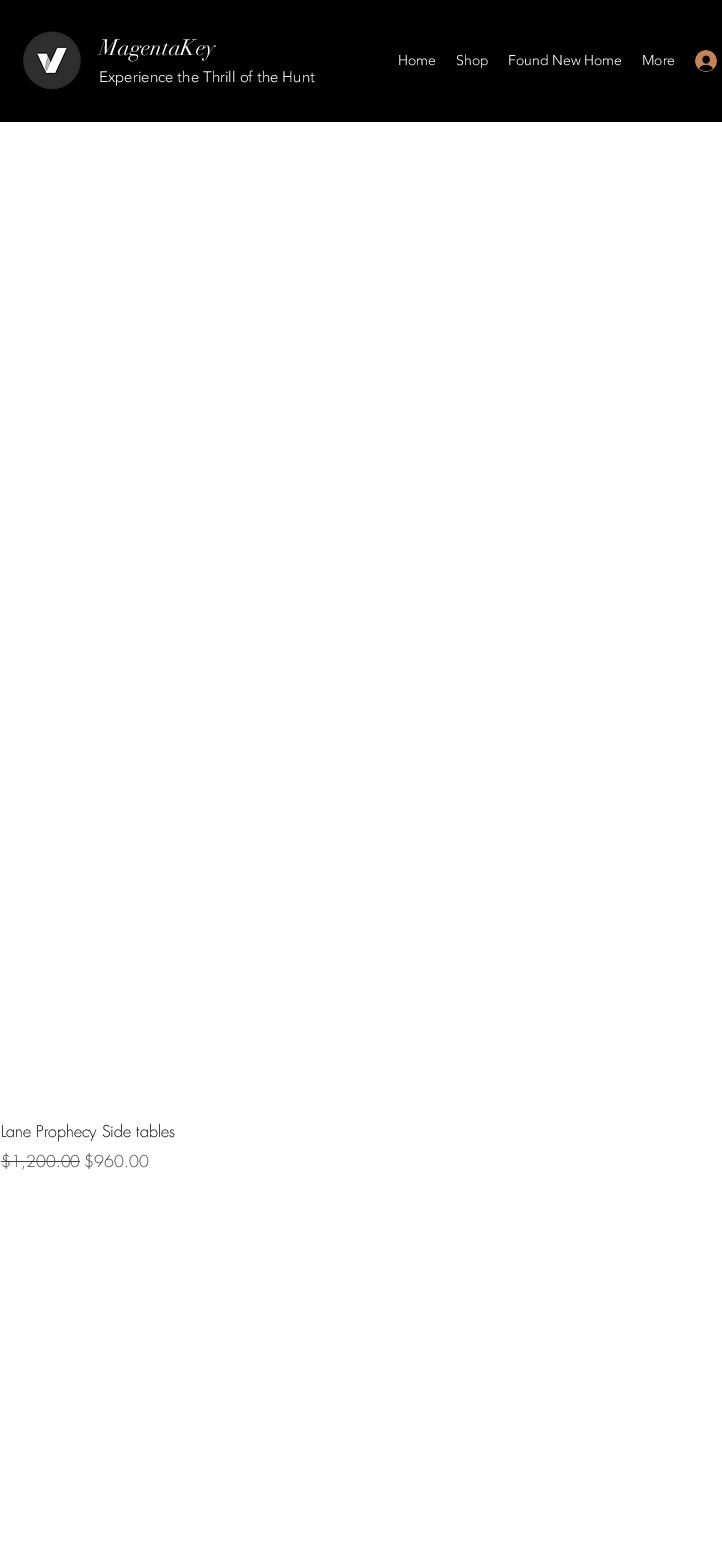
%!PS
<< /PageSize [722 1541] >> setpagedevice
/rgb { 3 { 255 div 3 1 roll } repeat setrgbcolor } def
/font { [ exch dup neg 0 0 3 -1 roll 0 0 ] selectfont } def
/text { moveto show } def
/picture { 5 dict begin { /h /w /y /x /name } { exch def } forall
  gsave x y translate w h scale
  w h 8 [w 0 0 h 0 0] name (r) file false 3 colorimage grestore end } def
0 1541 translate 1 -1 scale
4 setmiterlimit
255 255 255 rgb
0 0 722 1541 rectfill
0 0 0 rgb
0 0 722 122 rectfill
(img_01.rgb) 23 31 58 59 picture
(img_02.rgb) 695 50 22 22 picture
64 64 64 rgb
1 1161 79 1 rectfill
/didot-Regular 22 font
255 255 255 rgb
(MagentaKey) 99 55 text
/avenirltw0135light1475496-Light 15 font
(Experience the Thrill of the Hunt) 99 82 text
/avenirltw0135light1475496-Light 14 font
(Home) 398 65 text
247 247 247 rgb
(Shop) 456 65 text
255 255 255 rgb
(Found New Home) 508 65 text
(More) 642 65 text
/futura-Light 16 font
0 0 0 rgb
(Lane Prophecy Side tables) 1 1137 text
64 64 64 rgb
($1,200.00) 1 1167 text
($960.00) 84 1167 text
showpage
